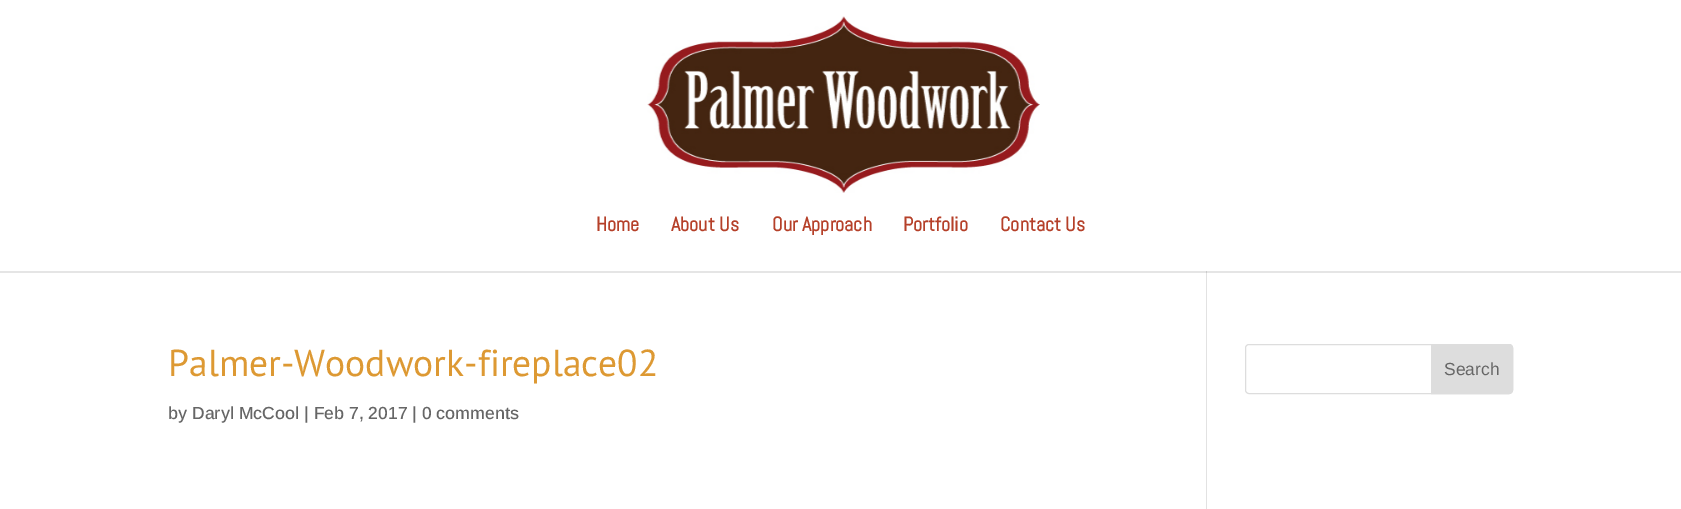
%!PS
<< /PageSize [1681 509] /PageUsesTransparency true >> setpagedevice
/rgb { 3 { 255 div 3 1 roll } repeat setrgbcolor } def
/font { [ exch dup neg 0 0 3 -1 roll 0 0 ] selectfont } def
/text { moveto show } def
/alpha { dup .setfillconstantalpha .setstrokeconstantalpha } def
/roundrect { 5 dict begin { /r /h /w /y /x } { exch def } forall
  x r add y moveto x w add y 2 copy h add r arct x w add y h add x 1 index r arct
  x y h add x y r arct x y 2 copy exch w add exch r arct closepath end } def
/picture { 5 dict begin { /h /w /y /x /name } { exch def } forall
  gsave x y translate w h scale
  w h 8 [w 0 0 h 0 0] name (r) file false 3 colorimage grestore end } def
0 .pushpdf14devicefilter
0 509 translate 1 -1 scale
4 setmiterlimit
255 255 255 rgb
0 0 1681 509 rectfill
226 226 226 rgb
1206 271 1 238 rectfill
0.1 alpha
0 0 0 rgb
0 271 1681 2 rectfill
1 alpha
(img_01.rgb) 647 16 393 177 picture
221 221 221 rgb
1245.5 344.5 267 49 3.5 roundrect stroke
1431.5 344.5 moveto 77.5 0 rlineto 2 0 3.5 1.5 3.5 3.5 rcurveto 0 42 rlineto 0 2 -1.5 3.5 -3.5 3.5 rcurveto -77.5 0 rlineto closepath gsave fill grestore
stroke
/Abel-Bold 20 font
181 64 41 rgb
(Home) 596 231 text
(About Us) 671 231 text
(Our Approach) 772 231 text
(Portfolio) 903 231 text
(Contact Us) 1000 231 text
/PTSans-Regular 37.5 font
221 153 51 rgb
(Palmer-Woodwork-fireplace02) 168 376 text
/Arimo-Medium 17.5 font
102 102 102 rgb
(by Daryl McCool | Feb 7, 2017 | 0 comments) 168 419 text
/Arimo-Regular 17.5 font
(Search) 1444 375 text
.poppdf14devicefilter showpage
